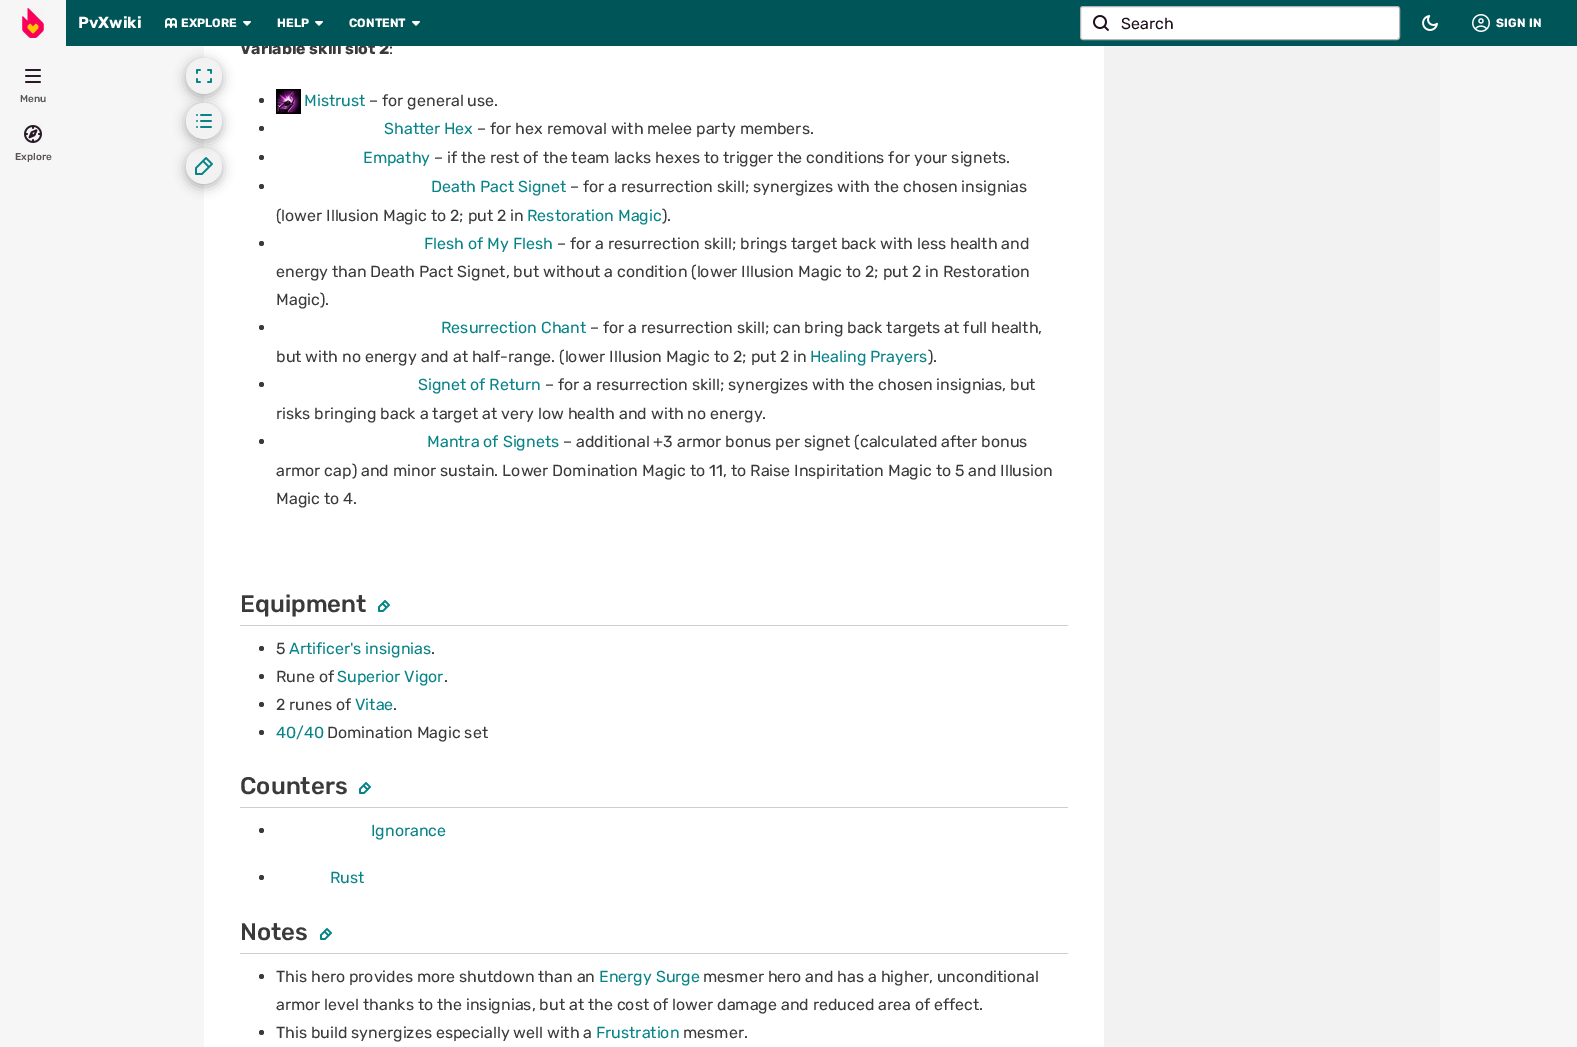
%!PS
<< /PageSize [1577 1047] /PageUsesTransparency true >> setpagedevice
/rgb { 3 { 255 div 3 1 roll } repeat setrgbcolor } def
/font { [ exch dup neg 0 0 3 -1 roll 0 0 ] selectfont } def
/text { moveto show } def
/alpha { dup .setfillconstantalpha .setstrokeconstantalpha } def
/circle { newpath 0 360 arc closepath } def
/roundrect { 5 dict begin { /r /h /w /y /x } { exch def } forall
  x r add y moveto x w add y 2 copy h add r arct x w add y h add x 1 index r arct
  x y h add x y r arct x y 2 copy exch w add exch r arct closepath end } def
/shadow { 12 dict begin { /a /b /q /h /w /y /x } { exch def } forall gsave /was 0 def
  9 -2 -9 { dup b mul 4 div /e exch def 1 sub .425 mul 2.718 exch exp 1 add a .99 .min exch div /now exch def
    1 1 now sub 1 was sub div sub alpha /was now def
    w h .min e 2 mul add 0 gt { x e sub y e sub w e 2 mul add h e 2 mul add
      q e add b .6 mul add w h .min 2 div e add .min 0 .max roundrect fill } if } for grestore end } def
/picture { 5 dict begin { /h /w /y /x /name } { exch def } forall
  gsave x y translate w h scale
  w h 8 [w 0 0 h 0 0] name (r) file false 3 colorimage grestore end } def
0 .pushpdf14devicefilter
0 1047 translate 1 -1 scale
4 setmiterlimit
246 246 246 rgb
0 0 1577 1047 rectfill
(img_01.rgb) 22 8 22 30 picture
(img_07.rgb) 25 69 16 14 picture
(img_08.rgb) 24 125 18 18 picture
255 255 255 rgb
204 46 900 1001 rectfill
0 0 0 rgb
186 61 36 36 18 6 0.3 shadow
242 242 242 rgb
204 76 18 circle fill
(img_09.rgb) 196 69 16 14 picture
0 0 0 rgb
186 151 36 36 18 6 0.3 shadow
242 242 242 rgb
204 166 18 circle fill
(img_11.rgb) 195 157 18 18 picture
0 0 0 rgb
186 106 36 36 18 6 0.3 shadow
242 242 242 rgb
204 121 18 circle fill
(img_10.rgb) 196 114 16 14 picture
58 58 58 rgb
261.5 100.5 2.5 circle fill
(img_12.rgb) 276 89 25 25 picture
261.5 128.5 2.5 circle fill
261.5 157.5 2.5 circle fill
261.5 186.5 2.5 circle fill
261.5 243.5 2.5 circle fill
261.5 327.5 2.5 circle fill
261.5 384.5 2.5 circle fill
261.5 441.5 2.5 circle fill
206 206 206 rgb
240 625 828 1 rectfill
(img_13.rgb) 378 600 12 12 picture
58 58 58 rgb
261.5 648.5 2.5 circle fill
261.5 676.5 2.5 circle fill
261.5 704.5 2.5 circle fill
261.5 732.5 2.5 circle fill
206 206 206 rgb
240 807 828 1 rectfill
(img_13.rgb) 359 782 12 12 picture
58 58 58 rgb
261.5 830.5 2.5 circle fill
261.5 877.5 2.5 circle fill
206 206 206 rgb
240 953 828 1 rectfill
(img_13.rgb) 320 928 12 12 picture
58 58 58 rgb
261.5 976.5 2.5 circle fill
261.5 1032.5 2.5 circle fill
242 242 242 rgb
1104 46 336 1001 rectfill
/Rubik-Medium 10 font
89 83 88 rgb
(Menu) 20 102 text
(Explore) 15 160 text
/Rubik-Bold 16 font
58 58 58 rgb
(Variable skill slot 2) 240 54 text
0 85 88 rgb
66 0 1511 46 rectfill
255 255 255 rgb
1080.5 6.5 319 33 2.5 roundrect gsave fill grestore
179 179 179 rgb
stroke
(img_04.rgb) 1093 15 16 16 picture
/Rubik-Regular 16 font
30 12 27 rgb
(Search) 1121 29 text
(img_06.rgb) 1472 14 18 18 picture
/Rubik-Bold 12 font
255 255 255 rgb
1496 27 moveto 0.25 0 (SIGN IN) ashow
(img_03.rgb) 412 21 8 5 picture
(CONTENT) 349 27 text
(img_03.rgb) 315 21 8 5 picture
(HELP) 277 27 text
(img_03.rgb) 243 21 8 5 picture
(EXPLORE) 181 27 text
(img_02.rgb) 165 18 12 10 picture
(img_05.rgb) 1422 15 16 16 picture
/Rubik-Bold 16 font
(PvXwiki) 78 28 text
/Rubik-Regular 16 font
58 58 58 rgb
(:) 389 54 text
8 132 136 rgb
(Mistrust) 304 106 text
58 58 58 rgb
(– for general use.) 369 106 text
8 132 136 rgb
(Shatter Hex) 384 134 text
58 58 58 rgb
(– for hex removal with melee party members.) 477 134 text
8 132 136 rgb
(Empathy) 363 163 text
58 58 58 rgb
(– if the rest of the team lacks hexes to trigger the conditions for your signets.) 434 163 text
8 132 136 rgb
(Death Pact Signet) 431 192 text
58 58 58 rgb
(– for a resurrection skill; synergizes with the chosen insignias) 570 192 text
(\(lower Illusion Magic to 2; put 2 in) 276 221 text
8 132 136 rgb
(Restoration Magic) 527 221 text
58 58 58 rgb
(\).) 662 221 text
8 132 136 rgb
(Flesh of My Flesh) 424 249 text
58 58 58 rgb
(– for a resurrection skill; brings target back with less health and) 557 249 text
(energy than Death Pact Signet, but without a condition \(lower Illusion Magic to 2; put 2 in Restoration) 276 277 text
(Magic\).) 276 305 text
8 132 136 rgb
(Resurrection Chant) 441 333 text
58 58 58 rgb
(– for a resurrection skill; can bring back targets at full health,) 590 333 text
(but with no energy and at half-range. \(lower Illusion Magic to 2; put 2 in) 276 362 text
8 132 136 rgb
(Healing Prayers) 810 362 text
58 58 58 rgb
(\).) 928 362 text
8 132 136 rgb
(Signet of Return) 418 390 text
58 58 58 rgb
(– for a resurrection skill; synergizes with the chosen insignias, but) 545 390 text
(risks bringing back a target at very low health and with no energy.) 276 419 text
8 132 136 rgb
(Mantra of Signets) 427 447 text
58 58 58 rgb
(– additional +3 armor bonus per signet \(calculated after bonus) 563 447 text
(armor cap\) and minor sustain. Lower Domination Magic to 11, to Raise Inspiritation Magic to 5 and Illusion) 276 476 text
(Magic to 4.) 276 504 text
/Rubik-Medium 24 font
(Equipment) 240 612 text
/Rubik-Regular 16 font
(5) 276 654 text
8 132 136 rgb
(Artificer's insignias) 289 654 text
58 58 58 rgb
(.) 431 654 text
(Rune of) 276 682 text
8 132 136 rgb
(Superior Vigor) 337 682 text
58 58 58 rgb
(.) 444 682 text
(2 runes of) 276 710 text
8 132 136 rgb
(Vitae) 355 710 text
58 58 58 rgb
(.) 393 710 text
8 132 136 rgb
(40/40) 276 738 text
58 58 58 rgb
(Domination Magic set) 327 738 text
/Rubik-Medium 24 font
(Counters) 240 794 text
/Rubik-Regular 16 font
8 132 136 rgb
(Ignorance) 371 836 text
(Rust) 330 883 text
/Rubik-Medium 24 font
58 58 58 rgb
(Notes) 240 940 text
/Rubik-Regular 16 font
(This hero provides more shutdown than an) 276 982 text
8 132 136 rgb
(Energy Surge) 599 982 text
58 58 58 rgb
(mesmer hero and has a higher, unconditional) 703 982 text
(armor level thanks to the insignias, but at the cost of lower damage and reduced area of effect.) 276 1010 text
(This build synergizes especially well with a) 276 1038 text
8 132 136 rgb
(Frustration) 596 1038 text
58 58 58 rgb
(mesmer.) 683 1038 text
.poppdf14devicefilter showpage
